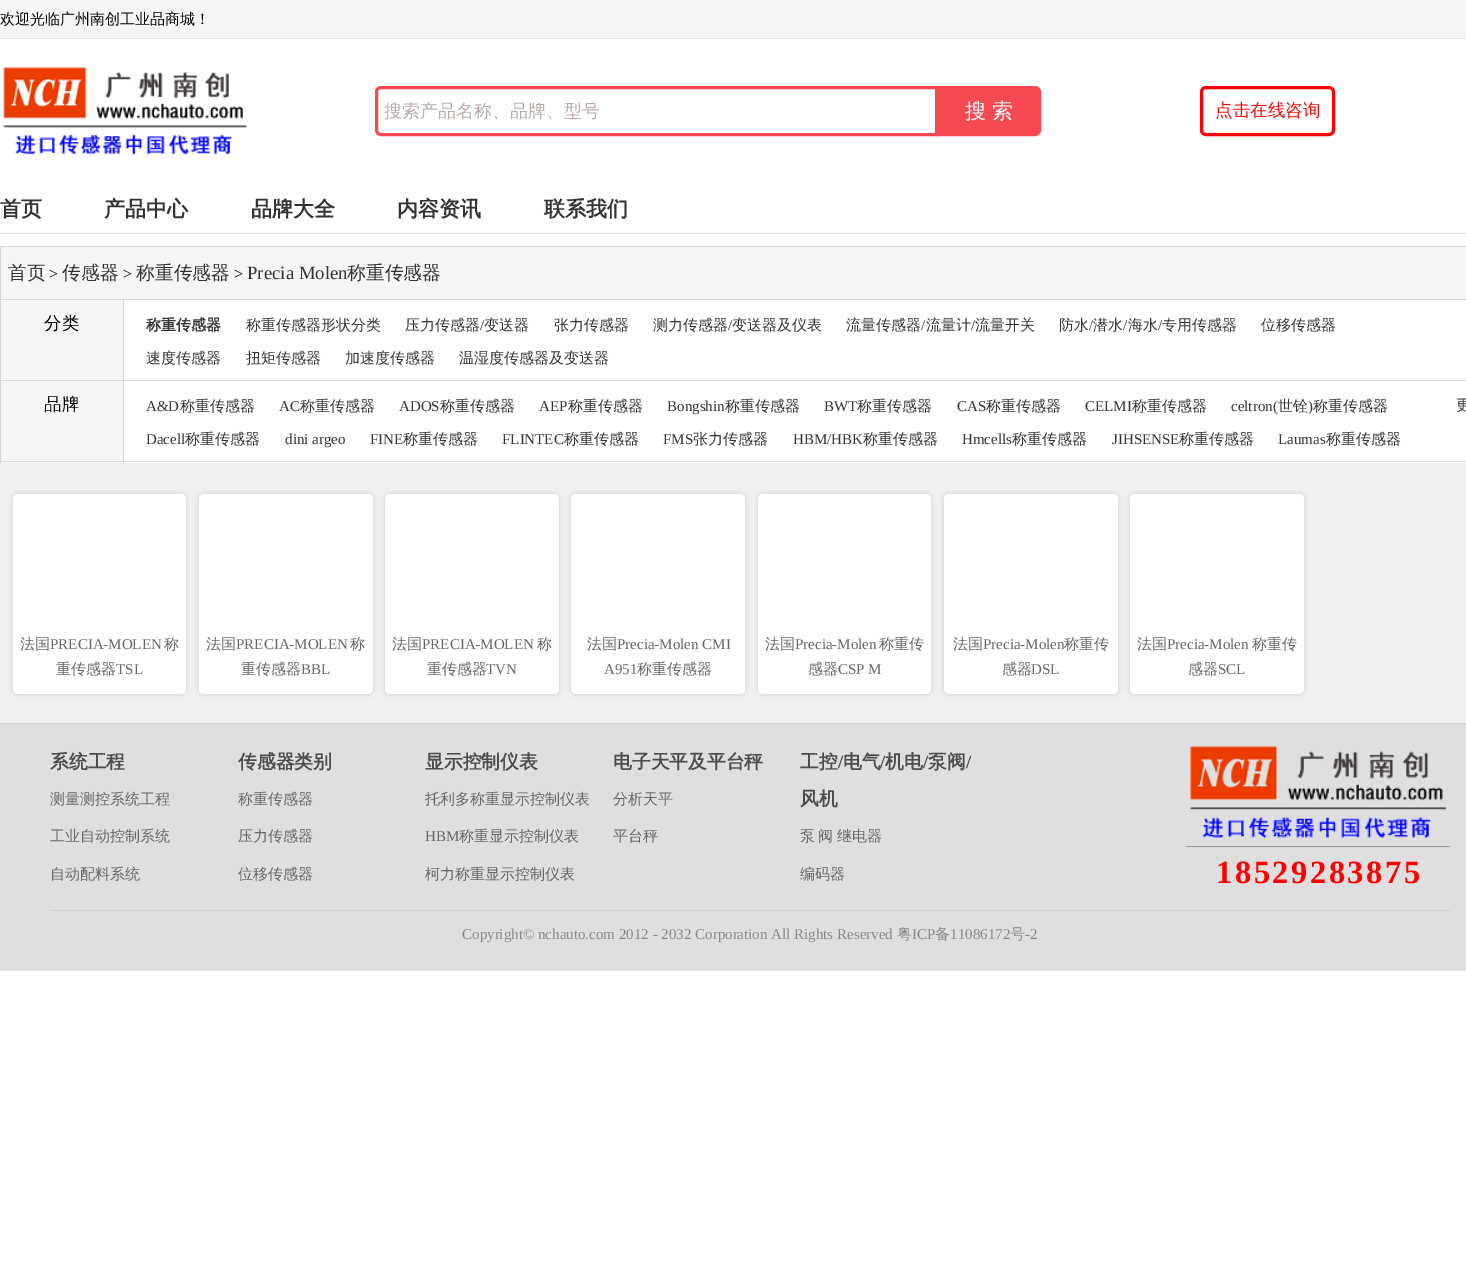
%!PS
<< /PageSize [1466 1273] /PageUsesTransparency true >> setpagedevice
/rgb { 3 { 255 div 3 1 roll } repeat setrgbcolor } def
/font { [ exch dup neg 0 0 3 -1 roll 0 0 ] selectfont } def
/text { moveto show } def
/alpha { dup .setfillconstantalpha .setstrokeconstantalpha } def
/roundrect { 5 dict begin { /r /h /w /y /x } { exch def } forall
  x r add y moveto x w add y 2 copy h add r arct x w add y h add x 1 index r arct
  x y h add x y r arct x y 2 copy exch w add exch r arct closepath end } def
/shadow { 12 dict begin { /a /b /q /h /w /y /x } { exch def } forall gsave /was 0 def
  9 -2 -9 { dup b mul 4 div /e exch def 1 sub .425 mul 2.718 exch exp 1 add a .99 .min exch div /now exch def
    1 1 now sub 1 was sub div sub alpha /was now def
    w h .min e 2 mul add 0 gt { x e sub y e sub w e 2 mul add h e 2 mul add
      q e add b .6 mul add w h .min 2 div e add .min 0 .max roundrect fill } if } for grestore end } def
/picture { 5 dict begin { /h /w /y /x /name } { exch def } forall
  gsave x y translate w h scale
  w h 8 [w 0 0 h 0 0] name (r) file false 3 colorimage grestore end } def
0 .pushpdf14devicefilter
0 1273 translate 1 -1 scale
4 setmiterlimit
255 255 255 rgb
0 0 1466 1273 rectfill
245 245 245 rgb
0 0 1466 38 rectfill
229 229 229 rgb
0 38 1466 1 rectfill
(img_01.rgb) 3 67 244 88 picture
247 73 81 rgb
3 setlinewidth
381 87.5 moveto 555.5 0 rlineto 0 47 rlineto -555.5 0 rlineto -2.5 0 -4.5 -2 -4.5 -4.5 rcurveto 0 -38 rlineto 0 -2.5 2 -4.5 4.5 -4.5 rcurveto closepath stroke
936.5 87.5 moveto 98.5 0 rlineto 2.5 0 4.5 2 4.5 4.5 rcurveto 0 38 rlineto 0 2.5 -2 4.5 -4.5 4.5 rcurveto -98.5 0 rlineto closepath gsave fill grestore
stroke
255 0 0 rgb
1201.5 87.5 132 47 4.5 roundrect stroke
223 223 223 rgb
0 233 1466 1 rectfill
245 245 245 rgb
1 247 1465 52 rectfill
216 216 216 rgb
0 246 1466 1 rectfill
0 246 1 53 rectfill
0 299 1466 1 rectfill
0 299 1 164 rectfill
245 245 245 rgb
1 300 122 80 rectfill
216 216 216 rgb
123 300 1 163 rectfill
1 380 1465 1 rectfill
245 245 245 rgb
1 381 122 82 rectfill
216 216 216 rgb
1 461 1465 1 rectfill
240 240 240 rgb
0 463 1466 260 rectfill
204 204 204 rgb
13 494 173 200 5 3 1 shadow
255 255 255 rgb
13 494 173 200 5 roundrect fill
204 204 204 rgb
199 494 174 200 5 3 1 shadow
255 255 255 rgb
199 494 174 200 5 roundrect fill
204 204 204 rgb
385 494 174 200 5 3 1 shadow
255 255 255 rgb
385 494 174 200 5 roundrect fill
204 204 204 rgb
571 494 174 200 5 3 1 shadow
255 255 255 rgb
571 494 174 200 5 roundrect fill
204 204 204 rgb
758 494 173 200 5 3 1 shadow
255 255 255 rgb
758 494 173 200 5 roundrect fill
204 204 204 rgb
944 494 174 200 5 3 1 shadow
255 255 255 rgb
944 494 174 200 5 roundrect fill
204 204 204 rgb
1130 494 174 200 5 3 1 shadow
255 255 255 rgb
1130 494 174 200 5 roundrect fill
223 223 223 rgb
0 724 1466 247 rectfill
207 207 207 rgb
0 723 1466 1 rectfill
(img_02.rgb) 1189 746 258 92 picture
153 153 153 rgb
1186 846 264 1 rectfill
207 207 207 rgb
50 910 1400 1 rectfill
/WenQuanYiZenHei-Medium 15 font
0 0 0 rgb
(欢迎光临广州南创工业品商城！) 0 24 text
/WenQuanYiZenHei-Medium 18 font
187 170 170 rgb
(搜索产品名称、品牌、型号) 384 117 text
/WenQuanYiZenHei-Medium 21 font
255 255 255 rgb
(搜 索) 965 118 text
/WenQuanYiZenHei-Medium 17.5 font
255 0 0 rgb
(点击在线咨询) 1215 116 text
/WenQuanYiZenHei-Bold 21 font
51 51 51 rgb
(首页) 0 216 text
(产品中心) 104 216 text
(品牌大全) 251 216 text
(内容资讯) 397 216 text
(联系我们) 544 216 text
/WenQuanYiZenHei-Medium 18.75 font
(首页) 8 279 text
/LiberationSerif-Regular 16 font
0 0 0 rgb
(>) 49 279 text
/WenQuanYiZenHei-Medium 18.75 font
51 51 51 rgb
(传感器) 62 279 text
/LiberationSerif-Regular 16 font
0 0 0 rgb
(>) 123 279 text
/WenQuanYiZenHei-Medium 18.75 font
51 51 51 rgb
(称重传感器) 136 279 text
/LiberationSerif-Regular 16 font
0 0 0 rgb
(>) 234 279 text
/LiberationSerif-Regular 18.75 font
51 51 51 rgb
(Precia Molen) 247 279 text
/WenQuanYiZenHei-Medium 18.75 font
(称重传感器) 347 279 text
/WenQuanYiZenHei-Medium 17.5 font
0 0 0 rgb
(分类) 44 329 text
/WenQuanYiZenHei-Bold 15 font
51 51 51 rgb
(称重传感器) 146 330 text
/WenQuanYiZenHei-Medium 15 font
(称重传感器形状分类) 246 330 text
(压力传感器) 405 330 text
/LiberationSerif-Regular 15 font
(/) 480 330 text
/WenQuanYiZenHei-Medium 15 font
(变送器) 484 330 text
(张力传感器) 554 330 text
(测力传感器) 653 330 text
/LiberationSerif-Regular 15 font
(/) 728 330 text
/WenQuanYiZenHei-Medium 15 font
(变送器及仪表) 732 330 text
(流量传感器) 846 330 text
/LiberationSerif-Regular 15 font
(/) 921 330 text
/WenQuanYiZenHei-Medium 15 font
(流量计) 926 330 text
/LiberationSerif-Regular 15 font
(/) 971 330 text
/WenQuanYiZenHei-Medium 15 font
(流量开关) 975 330 text
(防水) 1059 330 text
/LiberationSerif-Regular 15 font
(/) 1089 330 text
/WenQuanYiZenHei-Medium 15 font
(潜水) 1093 330 text
/LiberationSerif-Regular 15 font
(/) 1123 330 text
/WenQuanYiZenHei-Medium 15 font
(海水) 1128 330 text
/LiberationSerif-Regular 15 font
(/) 1158 330 text
/WenQuanYiZenHei-Medium 15 font
(专用传感器) 1162 330 text
(位移传感器) 1261 330 text
(速度传感器) 146 363 text
(扭矩传感器) 246 363 text
(加速度传感器) 345 363 text
(温湿度传感器及变送器) 459 363 text
/WenQuanYiZenHei-Medium 17.5 font
0 0 0 rgb
(品牌) 44 410 text
/LiberationSerif-Regular 15 font
51 51 51 rgb
(A&D) 146 411 text
/WenQuanYiZenHei-Medium 15 font
(称重传感器) 180 411 text
/LiberationSerif-Regular 15 font
(AC) 279 411 text
/WenQuanYiZenHei-Medium 15 font
(称重传感器) 300 411 text
/LiberationSerif-Regular 15 font
(ADOS) 399 411 text
/WenQuanYiZenHei-Medium 15 font
(称重传感器) 440 411 text
/LiberationSerif-Regular 15 font
(AEP) 539 411 text
/WenQuanYiZenHei-Medium 15 font
(称重传感器) 568 411 text
/LiberationSerif-Regular 15 font
(Bongshin) 667 411 text
/WenQuanYiZenHei-Medium 15 font
(称重传感器) 725 411 text
/LiberationSerif-Regular 15 font
(BWT) 824 411 text
/WenQuanYiZenHei-Medium 15 font
(称重传感器) 857 411 text
/LiberationSerif-Regular 15 font
(CAS) 957 411 text
/WenQuanYiZenHei-Medium 15 font
(称重传感器) 986 411 text
/LiberationSerif-Regular 15 font
(CELMI) 1085 411 text
/WenQuanYiZenHei-Medium 15 font
(称重传感器) 1132 411 text
/LiberationSerif-Regular 15 font
(celtron\() 1231 411 text
/WenQuanYiZenHei-Medium 15 font
(世铨) 1278 411 text
/LiberationSerif-Regular 15 font
(\)) 1308 411 text
/WenQuanYiZenHei-Medium 15 font
(称重传感器) 1313 411 text
/LiberationSerif-Regular 15 font
(Dacell) 146 444 text
/WenQuanYiZenHei-Medium 15 font
(称重传感器) 185 444 text
/LiberationSerif-Regular 15 font
(dini argeo) 285 444 text
(FINE) 370 444 text
/WenQuanYiZenHei-Medium 15 font
(称重传感器) 403 444 text
/LiberationSerif-Regular 15 font
(FLINTEC) 502 444 text
/WenQuanYiZenHei-Medium 15 font
(称重传感器) 564 444 text
/LiberationSerif-Regular 15 font
(FMS) 663 444 text
/WenQuanYiZenHei-Medium 15 font
(张力传感器) 693 444 text
/LiberationSerif-Regular 15 font
(HBM/HBK) 793 444 text
/WenQuanYiZenHei-Medium 15 font
(称重传感器) 863 444 text
/LiberationSerif-Regular 15 font
(Hmcells) 962 444 text
/WenQuanYiZenHei-Medium 15 font
(称重传感器) 1012 444 text
/LiberationSerif-Regular 15 font
(JIHSENSE) 1112 444 text
/WenQuanYiZenHei-Medium 15 font
(称重传感器) 1179 444 text
/LiberationSerif-Regular 15 font
(Laumas) 1278 444 text
/WenQuanYiZenHei-Medium 15 font
(称重传感器) 1326 444 text
(更) 1456 410 text
102 102 102 rgb
(法国) 20 649 text
/LiberationSerif-Regular 15 font
(PRECIA-MOLEN) 50 649 text
/WenQuanYiZenHei-Medium 15 font
(称) 164 649 text
(重传感器) 56 674 text
/LiberationSerif-Regular 15 font
(TSL) 116 674 text
/WenQuanYiZenHei-Medium 15 font
(法国) 206 649 text
/LiberationSerif-Regular 15 font
(PRECIA-MOLEN) 236 649 text
/WenQuanYiZenHei-Medium 15 font
(称) 350 649 text
(重传感器) 241 674 text
/LiberationSerif-Regular 15 font
(BBL) 301 674 text
/WenQuanYiZenHei-Medium 15 font
(法国) 392 649 text
/LiberationSerif-Regular 15 font
(PRECIA-MOLEN) 422 649 text
/WenQuanYiZenHei-Medium 15 font
(称) 537 649 text
(重传感器) 427 674 text
/LiberationSerif-Regular 15 font
(TVN) 486 674 text
/WenQuanYiZenHei-Medium 15 font
(法国) 587 649 text
/LiberationSerif-Regular 15 font
(Precia-Molen CMI) 617 649 text
(A951) 604 674 text
/WenQuanYiZenHei-Medium 15 font
(称重传感器) 637 674 text
(法国) 765 649 text
/LiberationSerif-Regular 15 font
(Precia-Molen) 795 649 text
/WenQuanYiZenHei-Medium 15 font
(称重传) 879 649 text
(感器) 808 674 text
/LiberationSerif-Regular 15 font
(CSP M) 838 674 text
/WenQuanYiZenHei-Medium 15 font
(法国) 953 649 text
/LiberationSerif-Regular 15 font
(Precia-Molen) 983 649 text
/WenQuanYiZenHei-Medium 15 font
(称重传) 1064 649 text
(感器) 1002 674 text
/LiberationSerif-Regular 15 font
(DSL) 1031 674 text
/WenQuanYiZenHei-Medium 15 font
(法国) 1137 649 text
/LiberationSerif-Regular 15 font
(Precia-Molen) 1167 649 text
/WenQuanYiZenHei-Medium 15 font
(称重传) 1252 649 text
(感器) 1188 674 text
/LiberationSerif-Regular 15 font
(SCL) 1218 674 text
/WenQuanYiZenHei-Bold 18.75 font
77 77 77 rgb
(系统工程) 50 768 text
/WenQuanYiZenHei-Medium 15 font
102 102 102 rgb
(测量测控系统工程) 50 804 text
(工业自动控制系统) 50 841 text
(自动配料系统) 50 879 text
/WenQuanYiZenHei-Bold 18.75 font
77 77 77 rgb
(传感器类别) 238 768 text
/WenQuanYiZenHei-Medium 15 font
102 102 102 rgb
(称重传感器) 238 804 text
(压力传感器) 238 841 text
(位移传感器) 238 879 text
/WenQuanYiZenHei-Bold 18.75 font
77 77 77 rgb
(显示控制仪表) 425 768 text
/WenQuanYiZenHei-Medium 15 font
102 102 102 rgb
(托利多称重显示控制仪表) 425 804 text
/LiberationSerif-Regular 15 font
(HBM) 425 841 text
/WenQuanYiZenHei-Medium 15 font
(称重显示控制仪表) 459 841 text
(柯力称重显示控制仪表) 425 879 text
/WenQuanYiZenHei-Bold 18.75 font
77 77 77 rgb
(电子天平及平台秤) 613 768 text
/WenQuanYiZenHei-Medium 15 font
102 102 102 rgb
(分析天平) 613 804 text
(平台秤) 613 841 text
/WenQuanYiZenHei-Bold 18.75 font
77 77 77 rgb
(工控) 800 768 text
/LiberationSerif-Bold 18.75 font
(/) 838 768 text
/WenQuanYiZenHei-Bold 18.75 font
(电气) 843 768 text
/LiberationSerif-Bold 18.75 font
(/) 880 768 text
/WenQuanYiZenHei-Bold 18.75 font
(机电) 885 768 text
/LiberationSerif-Bold 18.75 font
(/) 923 768 text
/WenQuanYiZenHei-Bold 18.75 font
(泵阀) 928 768 text
/LiberationSerif-Bold 18.75 font
(/) 966 768 text
/WenQuanYiZenHei-Bold 18.75 font
(风机) 800 805 text
/WenQuanYiZenHei-Medium 15 font
102 102 102 rgb
800 841 moveto -1 0 32 (泵 阀 继电器) widthshow
(编码器) 800 879 text
/LiberationSerif-Bold 32.5 font
255 0 0 rgb
1216 883 moveto 2.5 0 (18529283875) ashow
/LiberationSerif-Regular 15 font
136 136 136 rgb
(Copyright© nchauto.com 2012 - 2032 Corporation All Rights Reserved) 462 939 text
/WenQuanYiZenHei-Medium 15 font
(粤) 897 939 text
/LiberationSerif-Regular 15 font
(ICP) 912 939 text
/WenQuanYiZenHei-Medium 15 font
(备) 935 939 text
/LiberationSerif-Regular 15 font
(11086172) 950 939 text
/WenQuanYiZenHei-Medium 15 font
(号) 1010 939 text
/LiberationSerif-Regular 15 font
(-2) 1025 939 text
.poppdf14devicefilter showpage
